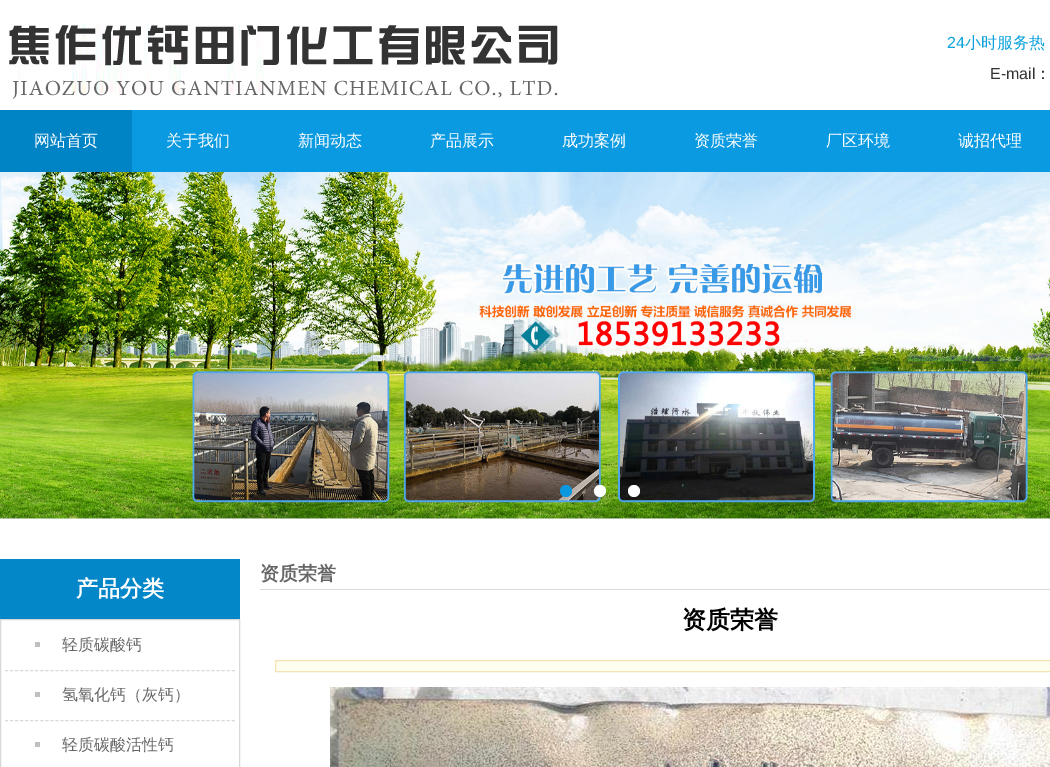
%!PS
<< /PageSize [1050 767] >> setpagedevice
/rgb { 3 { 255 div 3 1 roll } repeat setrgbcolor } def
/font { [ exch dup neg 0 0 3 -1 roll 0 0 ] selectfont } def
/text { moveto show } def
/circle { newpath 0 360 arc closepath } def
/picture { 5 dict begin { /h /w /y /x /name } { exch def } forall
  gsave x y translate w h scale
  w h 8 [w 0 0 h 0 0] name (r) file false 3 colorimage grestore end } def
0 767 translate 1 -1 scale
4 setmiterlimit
255 255 255 rgb
0 0 1050 767 rectfill
(img_01.rgb) 9 24 549 75 picture
10 154 226 rgb
132 110 918 62 rectfill
1 132 198 rgb
0 110 132 62 rectfill
(img_02.rgb) 0 172 1050 347 picture
11 152 222 rgb
566 491 6 circle fill
255 255 255 rgb
600 491 6 circle fill
634 491 6 circle fill
4 135 200 rgb
0 559 240 60 rectfill
217 217 217 rgb
0.5 619.5 239 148 rectstroke
[3 2.04] 0 setdash
5 670.5 moveto 230 0 rlineto stroke
191 191 191 rgb
35 642 5 5 rectfill
217 217 217 rgb
5 720.5 moveto 230 0 rlineto stroke
191 191 191 rgb
35 692 5 5 rectfill
35 742 5 5 rectfill
218 218 218 rgb
260 589 790 1 rectfill
255 255 240 rgb
275.5 660.5 moveto 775 0 rlineto 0 11 rlineto -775 0 rlineto closepath gsave fill grestore
244 228 180 rgb
[] 0 setdash
stroke
(img_03.rgb) 330 687 720 80 picture
/LiberationSans-Regular 16 font
11 162 222 rgb
(24) 947 48 text
/WenQuanYiZenHei-Medium 16 font
(小时服务热) 965 48 text
/LiberationSans-Regular 16 font
51 51 51 rgb
(E-mail) 990 79 text
/WenQuanYiZenHei-Medium 16 font
(：) 1035 79 text
255 255 255 rgb
(网站首页) 34 146 text
(关于我们) 166 146 text
(新闻动态) 298 146 text
(产品展示) 430 146 text
(成功案例) 562 146 text
(资质荣誉) 694 146 text
(厂区环境) 826 146 text
(诚招代理) 958 146 text
/WenQuanYiZenHei-Bold 22 font
(产品分类) 76 596 text
/WenQuanYiZenHei-Medium 16 font
102 102 102 rgb
(轻质碳酸钙) 62 650 text
(氢氧化钙（灰钙）) 62 700 text
(轻质碳酸活性钙) 62 750 text
/WenQuanYiZenHei-Bold 19 font
(资质荣誉) 260 580 text
/WenQuanYiZenHei-Bold 24 font
0 0 0 rgb
(资质荣誉) 682 628 text
showpage
